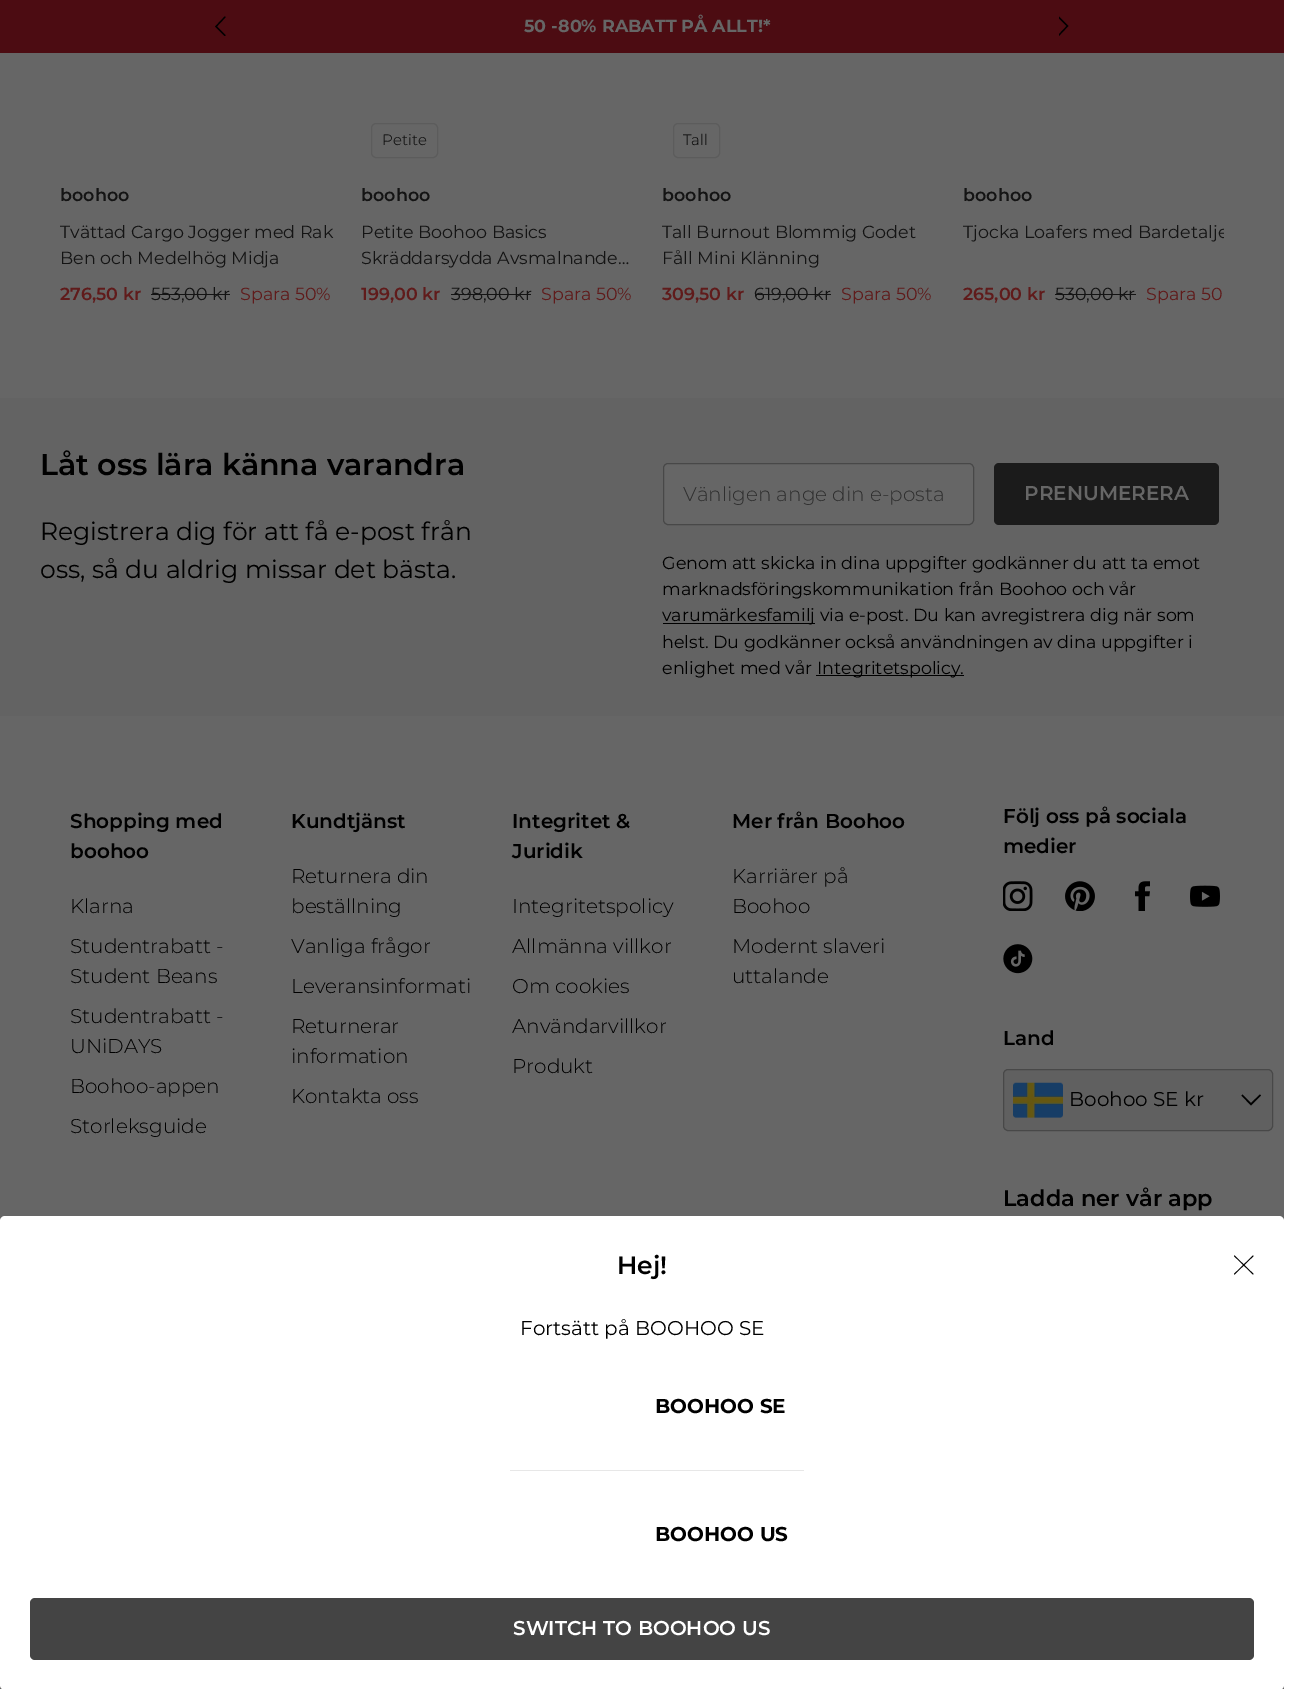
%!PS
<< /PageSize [1302 1689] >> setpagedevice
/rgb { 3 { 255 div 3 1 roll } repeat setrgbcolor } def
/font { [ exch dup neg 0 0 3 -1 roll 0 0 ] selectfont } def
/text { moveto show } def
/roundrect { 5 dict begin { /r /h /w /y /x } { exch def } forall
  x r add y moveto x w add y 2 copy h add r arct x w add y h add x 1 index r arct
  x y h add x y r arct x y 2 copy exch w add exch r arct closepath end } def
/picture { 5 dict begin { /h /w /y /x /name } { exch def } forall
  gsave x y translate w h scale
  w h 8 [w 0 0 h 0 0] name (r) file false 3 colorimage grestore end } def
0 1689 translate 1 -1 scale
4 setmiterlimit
255 255 255 rgb
0 0 1302 1689 rectfill
102 102 102 rgb
0 53 1284 1636 rectfill
76 12 18 rgb
0 0 1284 53 rectfill
0 0 0 rgb
1.2 setlinewidth
1 setlinecap
225 17 moveto -9 9.5 rlineto 9 9 rlineto stroke
gsave
1059 16 11 20 rectclip
1058.5 35.5 moveto 9 -9.5 rlineto -9 -9 rlineto stroke
grestore
20 20 20 rgb
151 294 79 1 rectfill
92 92 92 rgb
1 setlinewidth
0 setlinecap
371.5 123.5 66 34 4.5 roundrect stroke
20 20 20 rgb
451 294 80 1 rectfill
92 92 92 rgb
673.5 123.5 46 34 4.5 roundrect stroke
20 20 20 rgb
755 294 76 1 rectfill
1055 294 81 1 rectfill
99 99 99 rgb
0 398 1284 318 rectfill
102 102 102 rgb
663.5 463.5 310 61 4.5 roundrect gsave fill grestore
72 72 72 rgb
stroke
27 27 27 rgb
994 463 225 62 5 roundrect fill
0 0 0 rgb
663 623 152 1 rectfill
816 675 148 1 rectfill
(img_01.rgb) 1003 881 30 30 picture
(img_02.rgb) 1065 881 30 30 picture
(img_03.rgb) 1135 881 15 30 picture
(img_04.rgb) 1190 885 30 22 picture
(img_05.rgb) 1003 944 30 30 picture
96 96 96 rgb
1003.5 1069.5 269 61 4.5 roundrect gsave fill grestore
72 72 72 rgb
stroke
0 0 0 rgb
1260 1094.5 moveto -9 8.5 rlineto -8.5 -8.5 rlineto -1 1 rlineto 9.5 10 rlineto 10 -10 rlineto closepath fill
(img_06.rgb) 1013 1082 50 36 picture
255 255 255 rgb
0 1216 1284 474 5 roundrect fill
0 0 0 rgb
0.8 setlinewidth
1 setlinecap
1253 1256 moveto -18.5 18 rlineto 1234.5 1256 moveto 18.5 18 rlineto stroke
231 231 231 rgb
510 1470 294 1 rectfill
68 68 68 rgb
30 1598 1224 62 5 roundrect fill
/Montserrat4-Thin 17.5 font
102 102 102 rgb
(50 -80% RABATT PÅ ALLT!*) 524 32 text
/Montserrat-Thin 17.5 font
20 20 20 rgb
(boohoo) 60 201 text
/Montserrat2-Thin 17.5 font
(Tvättad Cargo Jogger med Rak) 60 238 text
(Ben och Medelhög Midja) 60 264 text
/Montserrat-Thin 17.5 font
96 27 27 rgb
(276,50 kr) 60 300 text
/Montserrat2-Thin 17.5 font
20 20 20 rgb
(553,00 kr) 151 300 text
96 27 27 rgb
(Spara 50%) 240 300 text
/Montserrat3-Thin 15 font
0 0 0 rgb
(Petite) 382 145 text
/Montserrat-Thin 17.5 font
20 20 20 rgb
(boohoo) 361 201 text
/Montserrat2-Thin 17.5 font
(Petite Boohoo Basics) 361 238 text
(Skräddarsydda Avsmalnande…) 361 264 text
/Montserrat-Thin 17.5 font
96 27 27 rgb
(199,00 kr) 361 300 text
/Montserrat2-Thin 17.5 font
20 20 20 rgb
(398,00 kr) 451 300 text
96 27 27 rgb
(Spara 50%) 541 300 text
/Montserrat3-Thin 15 font
0 0 0 rgb
(Tall) 683 145 text
/Montserrat-Thin 17.5 font
20 20 20 rgb
(boohoo) 662 201 text
/Montserrat2-Thin 17.5 font
(Tall Burnout Blommig Godet) 662 238 text
(Fåll Mini Klänning) 662 264 text
/Montserrat-Thin 17.5 font
96 27 27 rgb
(309,50 kr) 662 300 text
/Montserrat2-Thin 17.5 font
20 20 20 rgb
(619,00 kr) 754 300 text
96 27 27 rgb
(Spara 50%) 841 300 text
/Montserrat-Thin 17.5 font
20 20 20 rgb
(boohoo) 963 201 text
gsave
963 219 261 52 rectclip
/Montserrat2-Thin 17.5 font
(Tjocka Loafers med Bardetalje) 963 238 text
grestore
96 27 27 rgb
(265,00 kr) 963 300 text
/Montserrat2-Thin 17.5 font
20 20 20 rgb
(530,00 kr) 1055 300 text
96 27 27 rgb
(Spara 50) 1146 300 text
/Montserrat-Thin 30 font
0 0 0 rgb
(Låt oss lära känna varandra) 40 475 text
/Montserrat2-Thin 25 font
(Registrera dig för att få e-post från) 40 540 text
(oss, så du aldrig missar det bästa.) 40 578 text
/Montserrat3-Thin 20 font
47 47 47 rgb
(Vänligen ange din e-posta) 683 501 text
/Montserrat-Thin 20 font
102 102 102 rgb
(PRENUMERERA) 1024 500 text
/Montserrat2-Thin 17.5 font
0 0 0 rgb
(Genom att skicka in dina uppgifter godkänner du att ta emot) 662 569 text
(marknadsföringskommunikation från Boohoo och vår) 662 595 text
(varumärkesfamilj via e-post. Du kan avregistrera dig när som) 662 621 text
(helst. Du godkänner också användningen av dina uppgifter i) 662 648 text
(enlighet med vår) 662 674 text
(Integritetspolicy.) 817 674 text
/Montserrat-Thin 20 font
(Shopping med) 70 828 text
(boohoo) 70 858 text
/Montserrat3-Thin 20 font
(Klarna) 70 913 text
(Studentrabatt -) 70 953 text
(Student Beans) 70 983 text
(Studentrabatt -) 70 1023 text
(UNiDAYS) 70 1053 text
(Boohoo-appen) 70 1093 text
(Storleksguide) 70 1133 text
/Montserrat-Thin 20 font
(Kundtjänst) 291 828 text
/Montserrat3-Thin 20 font
(Returnera din) 291 883 text
(beställning) 291 913 text
(Vanliga frågor) 291 953 text
(Leveransinformati) 291 993 text
(Returnerar) 291 1033 text
(information) 291 1063 text
(Kontakta oss) 291 1103 text
/Montserrat-Thin 20 font
(Integritet &) 512 828 text
(Juridik) 512 858 text
/Montserrat3-Thin 20 font
(Integritetspolicy) 512 913 text
(Allmänna villkor) 512 953 text
(Om cookies) 512 993 text
(Användarvillkor) 512 1033 text
(Produkt) 512 1073 text
/Montserrat-Thin 20 font
(Mer från Boohoo) 732 828 text
/Montserrat3-Thin 20 font
(Karriärer på) 732 883 text
(Boohoo) 732 913 text
(Modernt slaveri) 732 953 text
(uttalande) 732 983 text
/Montserrat-Thin 20 font
(Följ oss på sociala) 1003 823 text
(medier) 1003 853 text
(Land) 1003 1045 text
/Montserrat2-Thin 20 font
(Boohoo SE kr) 1069 1106 text
/Montserrat-Thin 22.5 font
(Ladda ner vår app) 1003 1206 text
/Montserrat-Thin 25 font
(Hej!) 617 1274 text
/Montserrat2-Thin 20 font
(Fortsätt på BOOHOO SE) 520 1335 text
/Montserrat4-Thin 20 font
(BOOHOO SE) 655 1413 text
(BOOHOO US) 655 1541 text
/Montserrat-Thin 20 font
255 255 255 rgb
(SWITCH TO BOOHOO US) 513 1635 text
showpage
